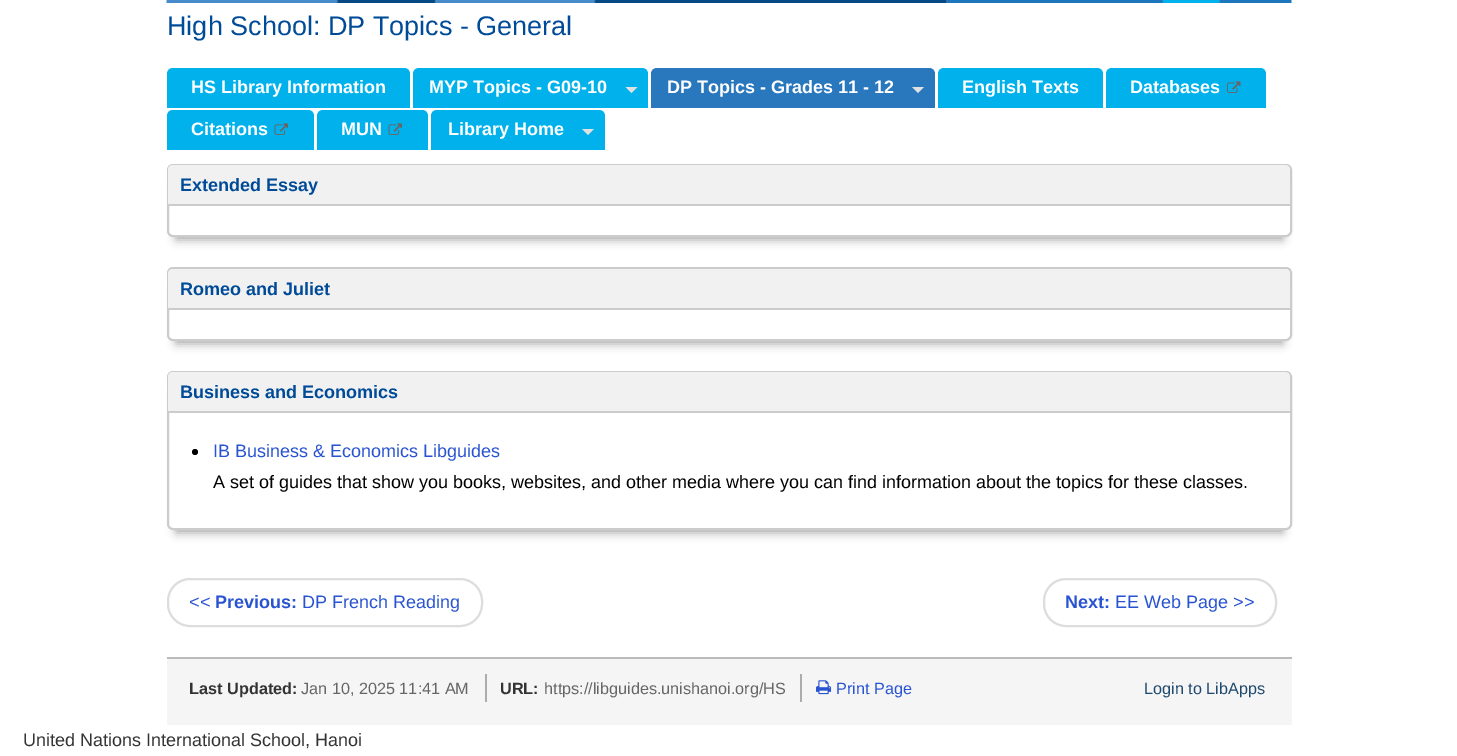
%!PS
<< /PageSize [1457 756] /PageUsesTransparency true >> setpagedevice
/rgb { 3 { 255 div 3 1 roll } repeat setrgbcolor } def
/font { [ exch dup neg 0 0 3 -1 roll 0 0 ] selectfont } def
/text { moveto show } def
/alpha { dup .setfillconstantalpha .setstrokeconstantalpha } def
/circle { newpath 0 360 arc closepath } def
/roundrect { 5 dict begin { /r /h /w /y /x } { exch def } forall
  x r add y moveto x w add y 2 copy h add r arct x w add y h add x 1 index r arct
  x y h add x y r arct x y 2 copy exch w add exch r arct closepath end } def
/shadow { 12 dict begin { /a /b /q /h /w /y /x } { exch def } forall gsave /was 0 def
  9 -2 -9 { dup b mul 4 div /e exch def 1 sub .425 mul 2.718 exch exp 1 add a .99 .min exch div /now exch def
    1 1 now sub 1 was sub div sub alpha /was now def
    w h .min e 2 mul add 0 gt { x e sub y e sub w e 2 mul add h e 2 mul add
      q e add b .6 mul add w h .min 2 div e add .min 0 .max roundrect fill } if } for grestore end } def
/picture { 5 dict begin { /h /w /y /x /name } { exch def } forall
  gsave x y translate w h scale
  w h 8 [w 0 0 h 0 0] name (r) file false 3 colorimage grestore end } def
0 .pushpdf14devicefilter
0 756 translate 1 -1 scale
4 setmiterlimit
255 255 255 rgb
0 0 1457 756 rectfill
(img_01.rgb) 166 0 1126 3 picture
0 177 235 rgb
173 68 moveto 231 0 rlineto 3.5 0 6 2.5 6 6 rcurveto 0 34 rlineto -243 0 rlineto 0 -34 rlineto 0 -3.5 2.5 -6 6 -6 rcurveto closepath fill
419 68 moveto 198 0 rlineto 0 40 rlineto -204 0 rlineto 0 -34 rlineto 0 -3.5 2.5 -6 6 -6 rcurveto closepath fill
617 68 moveto 25 0 rlineto 3.5 0 6 2.5 6 6 rcurveto 0 34 rlineto -31 0 rlineto closepath fill
225 225 225 rgb
625.5 87 moveto 12 0 rlineto -6 6 rlineto closepath fill
41 119 188 rgb
657 68 moveto 246 0 rlineto 0 40 rlineto -252 0 rlineto 0 -34 rlineto 0 -3.5 2.5 -6 6 -6 rcurveto closepath fill
903 68 moveto 26 0 rlineto 3.5 0 6 2.5 6 6 rcurveto 0 34 rlineto -32 0 rlineto closepath fill
225 225 225 rgb
912 87 moveto 12 0 rlineto -6 6 rlineto closepath fill
0 177 235 rgb
944 68 moveto 153 0 rlineto 3.5 0 6 2.5 6 6 rcurveto 0 34 rlineto -165 0 rlineto 0 -34 rlineto 0 -3.5 2.5 -6 6 -6 rcurveto closepath fill
1112 68 moveto 148 0 rlineto 3.5 0 6 2.5 6 6 rcurveto 0 34 rlineto -160 0 rlineto 0 -34 rlineto 0 -3.5 2.5 -6 6 -6 rcurveto closepath fill
(img_02.rgb) 1227 81 14 12 picture
173 110 moveto 135 0 rlineto 3.5 0 6 2.5 6 6 rcurveto 0 34 rlineto -147 0 rlineto 0 -34 rlineto 0 -3.5 2.5 -6 6 -6 rcurveto closepath fill
(img_03.rgb) 274 123 14 12 picture
323 110 moveto 99 0 rlineto 3.5 0 6 2.5 6 6 rcurveto 0 34 rlineto -111 0 rlineto 0 -34 rlineto 0 -3.5 2.5 -6 6 -6 rcurveto closepath fill
(img_03.rgb) 388 123 14 12 picture
437 110 moveto 136 0 rlineto 0 40 rlineto -142 0 rlineto 0 -34 rlineto 0 -3.5 2.5 -6 6 -6 rcurveto closepath fill
573 110 moveto 26 0 rlineto 3.5 0 6 2.5 6 6 rcurveto 0 34 rlineto -32 0 rlineto closepath fill
225 225 225 rgb
582 129 moveto 12 0 rlineto -6 6 rlineto closepath fill
170 170 170 rgb
176 185 1107 55 0 4.5 1 shadow
255 255 255 rgb
168 165 1123 71 5 roundrect gsave fill grestore
204 204 204 rgb
2 setlinewidth
stroke
241 241 241 rgb
173 165 moveto 1112 0 rlineto 3 0 5 2 5 5 rcurveto 0 36 rlineto -1122 0 rlineto 0 -36 rlineto 0 -3 2 -5 5 -5 rcurveto closepath fill
204 204 204 rgb
168 204 1122 2 rectfill
170 170 170 rgb
176 288 1107 56 0 4.5 1 shadow
255 255 255 rgb
168 268 1123 72 5 roundrect gsave fill grestore
204 204 204 rgb
stroke
241 241 241 rgb
173 269 moveto 1112 0 rlineto 3 0 5 2 5 5 rcurveto 0 35 rlineto -1122 0 rlineto 0 -35 rlineto 0 -3 2 -5 5 -5 rcurveto closepath fill
204 204 204 rgb
168 308 1122 2 rectfill
170 170 170 rgb
176 392 1107 141 0 4.5 1 shadow
255 255 255 rgb
168 372 1123 157 5 roundrect gsave fill grestore
204 204 204 rgb
stroke
241 241 241 rgb
173 372 moveto 1112 0 rlineto 3 0 5 2 5 5 rcurveto 0 36 rlineto -1122 0 rlineto 0 -36 rlineto 0 -3 2 -5 5 -5 rcurveto closepath fill
204 204 204 rgb
168 411 1122 2 rectfill
0 0 0 rgb
195 452 3 circle fill
221 221 221 rgb
168 579 314 47 22 roundrect stroke
1044 579 232 47 22 roundrect stroke
245 245 245 rgb
167 659 1125 66 rectfill
187 187 187 rgb
167 657 1125 2 rectfill
172 172 172 rgb
485 674 2 28 rectfill
800 674 2 28 rectfill
(img_04.rgb) 816 680 16 15 picture
/LiberationSans-Regular 27 font
0 75 152 rgb
(High School: DP Topics - General) 167 35 text
/LiberationSans-Bold 18 font
255 255 255 rgb
(HS Library Information) 191 93 text
(MYP Topics - G09-10) 429 93 text
(DP Topics - Grades 11 - 12) 667 93 text
(English Texts) 962 93 text
(Databases) 1130 93 text
(Citations) 191 135 text
(MUN) 341 135 text
(Library Home) 448 135 text
0 75 152 rgb
(Extended Essay) 180 191 text
(Romeo and Juliet) 180 295 text
(Business and Economics) 180 398 text
/LiberationSans-Regular 18 font
41 84 209 rgb
(IB Business & Economics Libguides) 213 457 text
0 0 0 rgb
(A set of guides that show you books, websites, and other media where you can find information about the topics for these classes.) 213 488 text
41 84 209 rgb
(<<) 189 608 text
/LiberationSans-Bold 18 font
(Previous:) 215 608 text
/LiberationSans-Regular 18 font
(DP French Reading) 302 608 text
/LiberationSans-Bold 18 font
(Next:) 1065 608 text
/LiberationSans-Regular 18 font
(EE Web Page >>) 1115 608 text
/LiberationSans-Bold 16.25 font
51 51 51 rgb
(Last Updated:) 189 694 text
/LiberationSans-Regular 16.25 font
102 102 102 rgb
(Jan 10, 2025 11:41 AM) 301 694 text
/LiberationSans-Bold 16.25 font
51 51 51 rgb
(URL:) 500 694 text
/LiberationSans-Regular 16.25 font
102 102 102 rgb
(https://libguides.unishanoi.org/HS) 544 694 text
41 84 209 rgb
(Print Page) 836 694 text
31 73 110 rgb
(Login to LibApps) 1144 694 text
/LiberationSans-Regular 18 font
51 51 51 rgb
(United Nations International School, Hanoi) 23 746 text
.poppdf14devicefilter showpage
